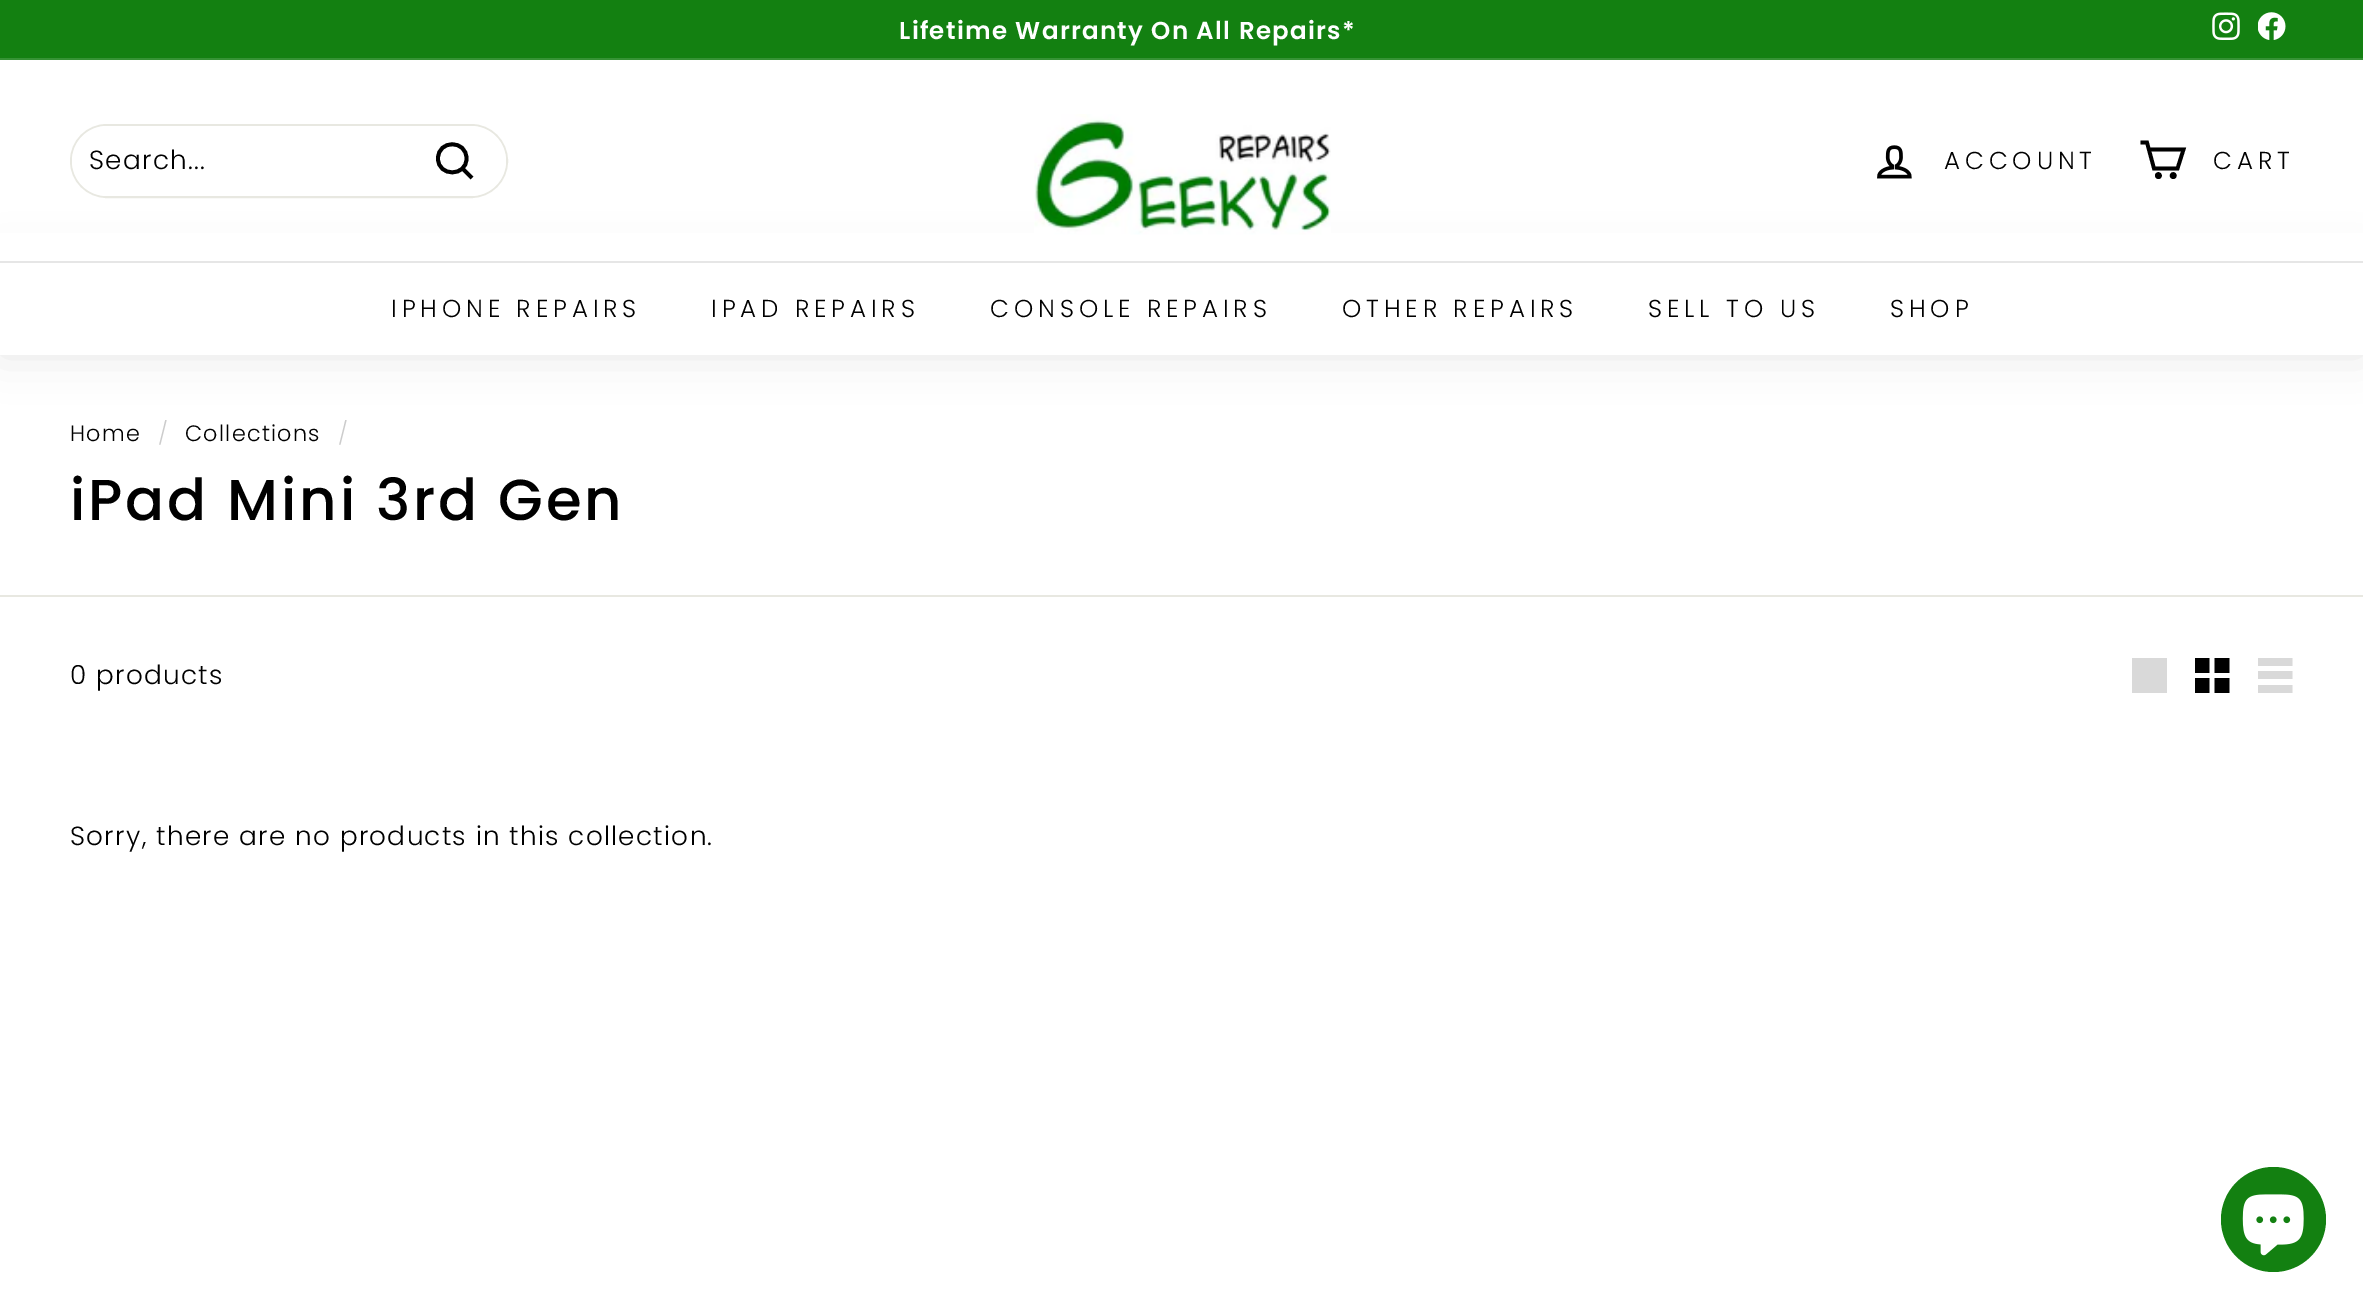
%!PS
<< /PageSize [2363 1309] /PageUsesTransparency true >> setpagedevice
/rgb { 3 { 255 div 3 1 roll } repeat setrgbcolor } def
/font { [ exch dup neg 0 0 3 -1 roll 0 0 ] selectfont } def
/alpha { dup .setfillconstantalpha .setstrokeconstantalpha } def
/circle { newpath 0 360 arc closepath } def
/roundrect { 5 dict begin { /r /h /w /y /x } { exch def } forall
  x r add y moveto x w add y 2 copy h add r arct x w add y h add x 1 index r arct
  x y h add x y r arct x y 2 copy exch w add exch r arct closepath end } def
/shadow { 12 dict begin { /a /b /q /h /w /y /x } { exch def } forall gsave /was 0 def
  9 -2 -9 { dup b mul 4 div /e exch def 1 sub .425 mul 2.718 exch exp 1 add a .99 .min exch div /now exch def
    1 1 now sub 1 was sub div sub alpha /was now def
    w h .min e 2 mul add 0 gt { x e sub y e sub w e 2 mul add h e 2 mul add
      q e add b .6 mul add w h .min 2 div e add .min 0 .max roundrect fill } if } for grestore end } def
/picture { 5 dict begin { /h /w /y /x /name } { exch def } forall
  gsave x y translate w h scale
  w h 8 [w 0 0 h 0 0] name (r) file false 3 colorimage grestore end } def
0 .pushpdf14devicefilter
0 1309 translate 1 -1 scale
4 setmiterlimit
255 255 255 rgb
0 0 2363 1309 rectfill
19 128 17 rgb
0 0 2363 58 rectfill
(img_01.rgb) 2212 12 28 28 picture
(img_02.rgb) 2258 12 28 28 picture
54 147 53 rgb
0 58 2363 2 rectfill
0 0 0 rgb
0 261 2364 94 0 22 0.1 shadow
255 255 255 rgb
0 233 2363 28 rectfill
232 232 225 rgb
2 setlinewidth
71 125 436 72 36 roundrect stroke
255 255 255 rgb
72 126 434 70 35 roundrect fill
0 0 0 rgb
3.8 setlinewidth
466.5 158.5 moveto 0 18.5 -28.5 18.5 -28.5 0 rcurveto 0 -19 28.5 -19 28.5 0 rcurveto closepath 472 178 moveto -9.5 -9.5 rlineto stroke
(img_03.rgb) 1034 114 297 121 picture
(img_04.rgb) 1877 145 35 34 picture
3.7 setlinewidth
2149 149.5 moveto 34.5 0 rlineto -6 19 rlineto -23.5 0 rlineto -7 -26 rlineto -6.5 0 rlineto stroke
2158.4 175.6 1.5 circle gsave fill grestore
stroke
2173.2 175.6 1.5 circle gsave fill grestore
stroke
255 255 255 rgb
0 263 2363 92 rectfill
230 230 230 rgb
0 261 2363 2 rectfill
232 232 225 rgb
0 595 2363 2 rectfill
217 217 217 rgb
2132 658 35 35 rectfill
(img_05.rgb) 2195 658 35 35 picture
gsave
2258 658 35 35 rectclip
2257.5 658 moveto 35 0 rlineto 0 8 rlineto -35 0 rlineto closepath 2257.5 671 moveto 35 0 rlineto 0 8 rlineto -35 0 rlineto closepath 2257.5 685 moveto 35 0 rlineto 0 8 rlineto -35 0 rlineto closepath fill
grestore
19 128 17 rgb
2273.5 1219.5 52.5 circle fill
(img_06.rgb) 2242 1194 62 62 picture
/Poppins-SemiBold 24.5 font
255 255 255 rgb
899 39 moveto 1.3 0 (Lifetime Warranty On All Repairs*) ashow
/Poppins-Light 26.25 font
0 0 0 rgb
89 169 moveto 1.3 0 (Search...) ashow
/Poppins-Light 24.5 font
1944 169 moveto 4.9 0 (ACCOUNT) ashow
2213 169 moveto 4.9 0 (CART) ashow
391 317 moveto 4.9 0 (IPHONE REPAIRS) ashow
711 317 moveto 4.9 0 (IPAD REPAIRS) ashow
990 317 moveto 4.9 0 (CONSOLE REPAIRS) ashow
1342 317 moveto 4.9 0 (OTHER REPAIRS) ashow
1648 317 moveto 4.9 0 (SELL TO US) ashow
1890 317 moveto 4.9 0 (SHOP) ashow
/Poppins-Light 22.25 font
70 441 moveto 1.3 0 (Home) ashow
204 204 204 rgb
158 441 moveto 1.3 0 (/) ashow
0 0 0 rgb
185 441 moveto 1.3 0 (Collections) ashow
204 204 204 rgb
338 441 moveto 1.3 0 (/) ashow
/Poppins-Medium 57.75 font
0 0 0 rgb
70 520 moveto 2.9 0 (iPad Mini 3rd Gen) ashow
/Poppins-Light 26.25 font
70 684 moveto 1.3 0 (0 products) ashow
70 845 moveto 1.3 0 (Sorry, there are no products in this collection.) ashow
.poppdf14devicefilter showpage
